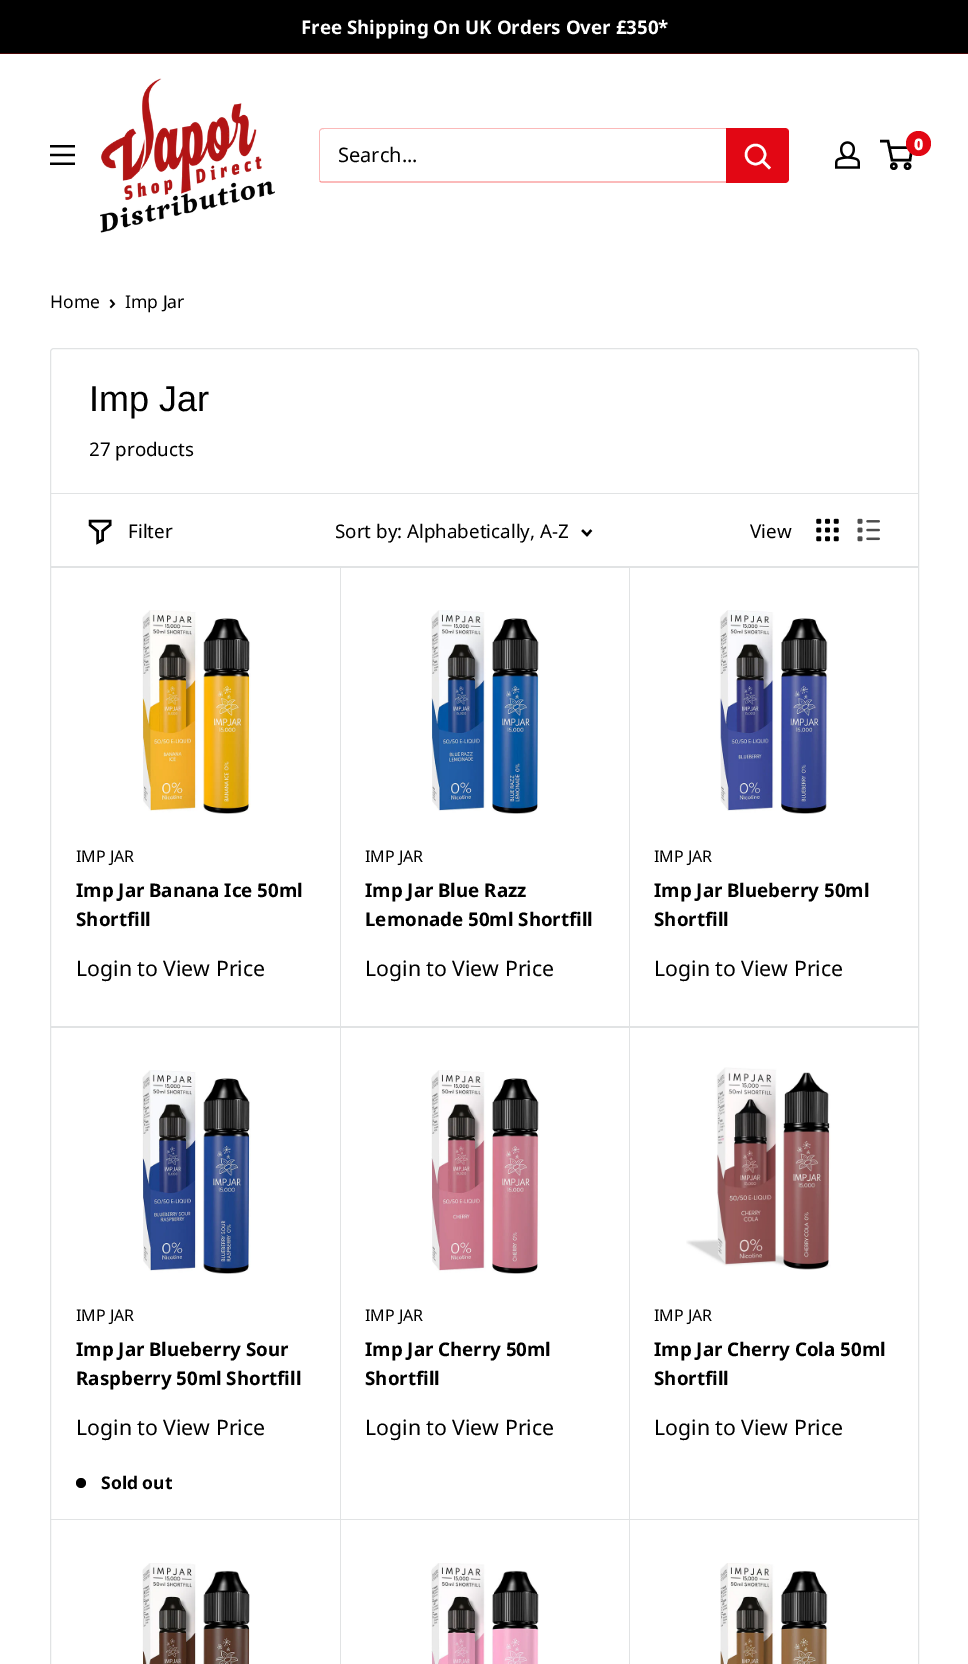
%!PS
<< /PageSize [968 1664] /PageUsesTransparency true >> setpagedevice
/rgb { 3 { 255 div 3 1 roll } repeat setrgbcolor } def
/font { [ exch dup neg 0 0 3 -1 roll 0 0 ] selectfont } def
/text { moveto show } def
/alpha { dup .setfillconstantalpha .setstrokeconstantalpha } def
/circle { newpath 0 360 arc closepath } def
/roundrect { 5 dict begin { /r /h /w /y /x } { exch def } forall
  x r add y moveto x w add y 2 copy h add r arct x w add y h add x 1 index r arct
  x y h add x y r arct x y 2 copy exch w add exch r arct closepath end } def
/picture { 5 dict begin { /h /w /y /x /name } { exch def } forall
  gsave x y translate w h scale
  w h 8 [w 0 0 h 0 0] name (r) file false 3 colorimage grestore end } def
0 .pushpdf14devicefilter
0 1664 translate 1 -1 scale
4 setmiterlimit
255 255 255 rgb
0 0 968 1664 rectfill
0 0 0 rgb
0 0 968 53 rectfill
73 7 7 rgb
0 53 968 1 rectfill
(img_01.rgb) 50 145 25 20 picture
(img_02.rgb) 100 78 175 155 picture
251 186 186 rgb
319 181 moveto 1 1 2 2 4 2 rcurveto 462 0 rlineto 2 0 4 -2 4 -4 rcurveto 0 -47 rlineto 0 -1 0 -2 -1 -3 rcurveto 0 41 rlineto 0 4 2 11 -4 11 rcurveto closepath fill
0.3 alpha
242 24 24 rgb
324 129 moveto 462 0 rlineto 2 0 rlineto -1 0 -2 -1 -3 -1 rcurveto -462 0 rlineto -2 0 -4 2 -4 4 rcurveto 0 47 rlineto 0 1 1 3 2 3 rcurveto -1 -2 rlineto 0 -49 rlineto 1 -2 3 -2 4 -2 rcurveto closepath fill
1 alpha
226 7 20 rgb
726 128 moveto 59 0 rlineto 2 0 4 2 4 4 rcurveto 0 47 rlineto 0 2 -2 4 -4 4 rcurveto -59 0 rlineto closepath fill
255 255 255 rgb
2.5 setlinewidth
2 setlinecap
769 167.5 moveto -6.5 -6.5 rlineto stroke
0 setlinecap
755.5 154.5 9.5 circle stroke
(img_03.rgb) 835 141 25 28 picture
0 0 0 rgb
893.8 166.2 2.5 circle stroke
907.5 166.2 2.5 circle stroke
889 147.5 moveto 23 0 rlineto -2 12.5 rlineto -18 0 rlineto -4 -19 rlineto -8 0 rlineto stroke
226 7 20 rgb
918.5 143.5 12.5 circle fill
0 0 0 rgb
1.7 setlinewidth
2 setlinecap
111 300.5 moveto 3 3.5 rlineto -3 3 rlineto stroke
225 227 228 rgb
1 setlinewidth
0 setlinecap
50.5 348.5 868 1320 3.5 roundrect stroke
51 493 moveto 0 72 rlineto 0 -71 rlineto 867 0 rlineto 0 71 rlineto 0 -72 rlineto closepath fill
55 566 moveto 286 0 rlineto 0 460 rlineto -1 0 rlineto 0 -460 rlineto -286 0 rlineto closepath fill
341 566 moveto 289 0 rlineto 0 460 rlineto -1 0 rlineto 0 -460 rlineto closepath fill
51 495 moveto 0 73 rlineto 867 0 rlineto 0 -73 rlineto 0 71 rlineto -867 0 rlineto closepath fill
0 0 0 rgb
2.5 setlinewidth
2 setlinecap
110 525 moveto -7.5 6 rlineto 0 9 rlineto -5 2.5 rlineto 0 -11.5 rlineto -7.5 -6 rlineto 0 -4 rlineto 20 0 rlineto closepath stroke
2.3 setlinewidth
590.5 531 moveto -3.5 4 rlineto -4 -4 rlineto stroke
(img_04.rgb) 816 518 23 24 picture
(img_05.rgb) 857 518 23 24 picture
225 227 228 rgb
51 570 moveto 0 458 rlineto 289 0 rlineto 0 -2 rlineto -289 0 rlineto 0 -457 rlineto closepath fill
(img_06.rgb) 142 610 109 204 picture
340 1026 moveto 0 2 rlineto 289 0 rlineto 0 -460 rlineto 0 458 rlineto closepath fill
(img_07.rgb) 431 610 109 204 picture
(img_08.rgb) 719 610 110 204 picture
629 1026 moveto 0 2 rlineto 289 0 rlineto 0 -458 rlineto 0 -2 rlineto 0 458 rlineto closepath fill
51 1028 moveto 0 492 rlineto 289 0 rlineto 0 -1 rlineto -289 0 rlineto closepath fill
53 1026 moveto 288 0 rlineto 0 493 rlineto -288 0 rlineto 287 0 rlineto 0 -493 rlineto closepath fill
(img_09.rgb) 142 1070 109 204 picture
0 0 0 rgb
81 1483 5 circle fill
225 227 228 rgb
340 1519 moveto 0 1 rlineto 289 0 rlineto 0 -492 rlineto 0 491 rlineto closepath fill
341 1026 moveto 289 0 rlineto 0 493 rlineto -289 0 rlineto 288 0 rlineto 0 -493 rlineto closepath fill
(img_10.rgb) 431 1070 109 204 picture
(img_11.rgb) 686 1067 145 203 picture
629 1519 moveto 0 1 rlineto 289 0 rlineto 0 -492 rlineto 0 491 rlineto closepath fill
(img_12.rgb) 142 1563 108 101 picture
340 1519 1 145 rectfill
(img_13.rgb) 431 1563 108 101 picture
629 1519 1 145 rectfill
(img_14.rgb) 720 1563 109 101 picture
/NotoSans-Bold 18.75 font
255 255 255 rgb
(Free Shipping On UK Orders Over £350*) 301 34 text
/NotoSans-Regular 20 font
0 0 0 rgb
(Search...) 338 162 text
/NotoSans-Black 16 font
255 255 255 rgb
(0) 914 150 text
/NotoSans-Regular 17.5 font
0 0 0 rgb
(Home) 50 308 text
(Imp Jar) 125 308 text
/LiberationSans-Regular 36 font
(Imp Jar) 89 411 text
/NotoSans-Regular 18.75 font
(27 products) 89 456 text
(Filter) 128 538 text
(Sort by: Alphabetically, A-Z) 335 538 text
(View) 750 538 text
/NotoSans-Regular 16 font
(IMP JAR) 76 862 text
/NotoSans-Bold 18.75 font
(Imp Jar Banana Ice 50ml) 76 897 text
(Shortfill) 76 926 text
/NotoSans-Regular 21.25 font
(Login to View Price) 76 976 text
/NotoSans-Regular 16 font
(IMP JAR) 365 862 text
/NotoSans-Bold 18.75 font
(Imp Jar Blue Razz) 365 897 text
(Lemonade 50ml Shortfill) 365 926 text
/NotoSans-Regular 21.25 font
(Login to View Price) 365 976 text
/NotoSans-Regular 16 font
(IMP JAR) 654 862 text
/NotoSans-Bold 18.75 font
(Imp Jar Blueberry 50ml) 654 897 text
(Shortfill) 654 926 text
/NotoSans-Regular 21.25 font
(Login to View Price) 654 976 text
/NotoSans-Regular 16 font
(IMP JAR) 76 1321 text
/NotoSans-Bold 18.75 font
(Imp Jar Blueberry Sour) 76 1356 text
(Raspberry 50ml Shortfill) 76 1385 text
/NotoSans-Regular 21.25 font
(Login to View Price) 76 1435 text
/NotoSans-Bold 17.5 font
(Sold out) 101 1489 text
/NotoSans-Regular 16 font
(IMP JAR) 365 1321 text
/NotoSans-Bold 18.75 font
(Imp Jar Cherry 50ml) 365 1356 text
(Shortfill) 365 1385 text
/NotoSans-Regular 21.25 font
(Login to View Price) 365 1435 text
/NotoSans-Regular 16 font
(IMP JAR) 654 1321 text
/NotoSans-Bold 18.75 font
(Imp Jar Cherry Cola 50ml) 654 1356 text
(Shortfill) 654 1385 text
/NotoSans-Regular 21.25 font
(Login to View Price) 654 1435 text
.poppdf14devicefilter showpage
